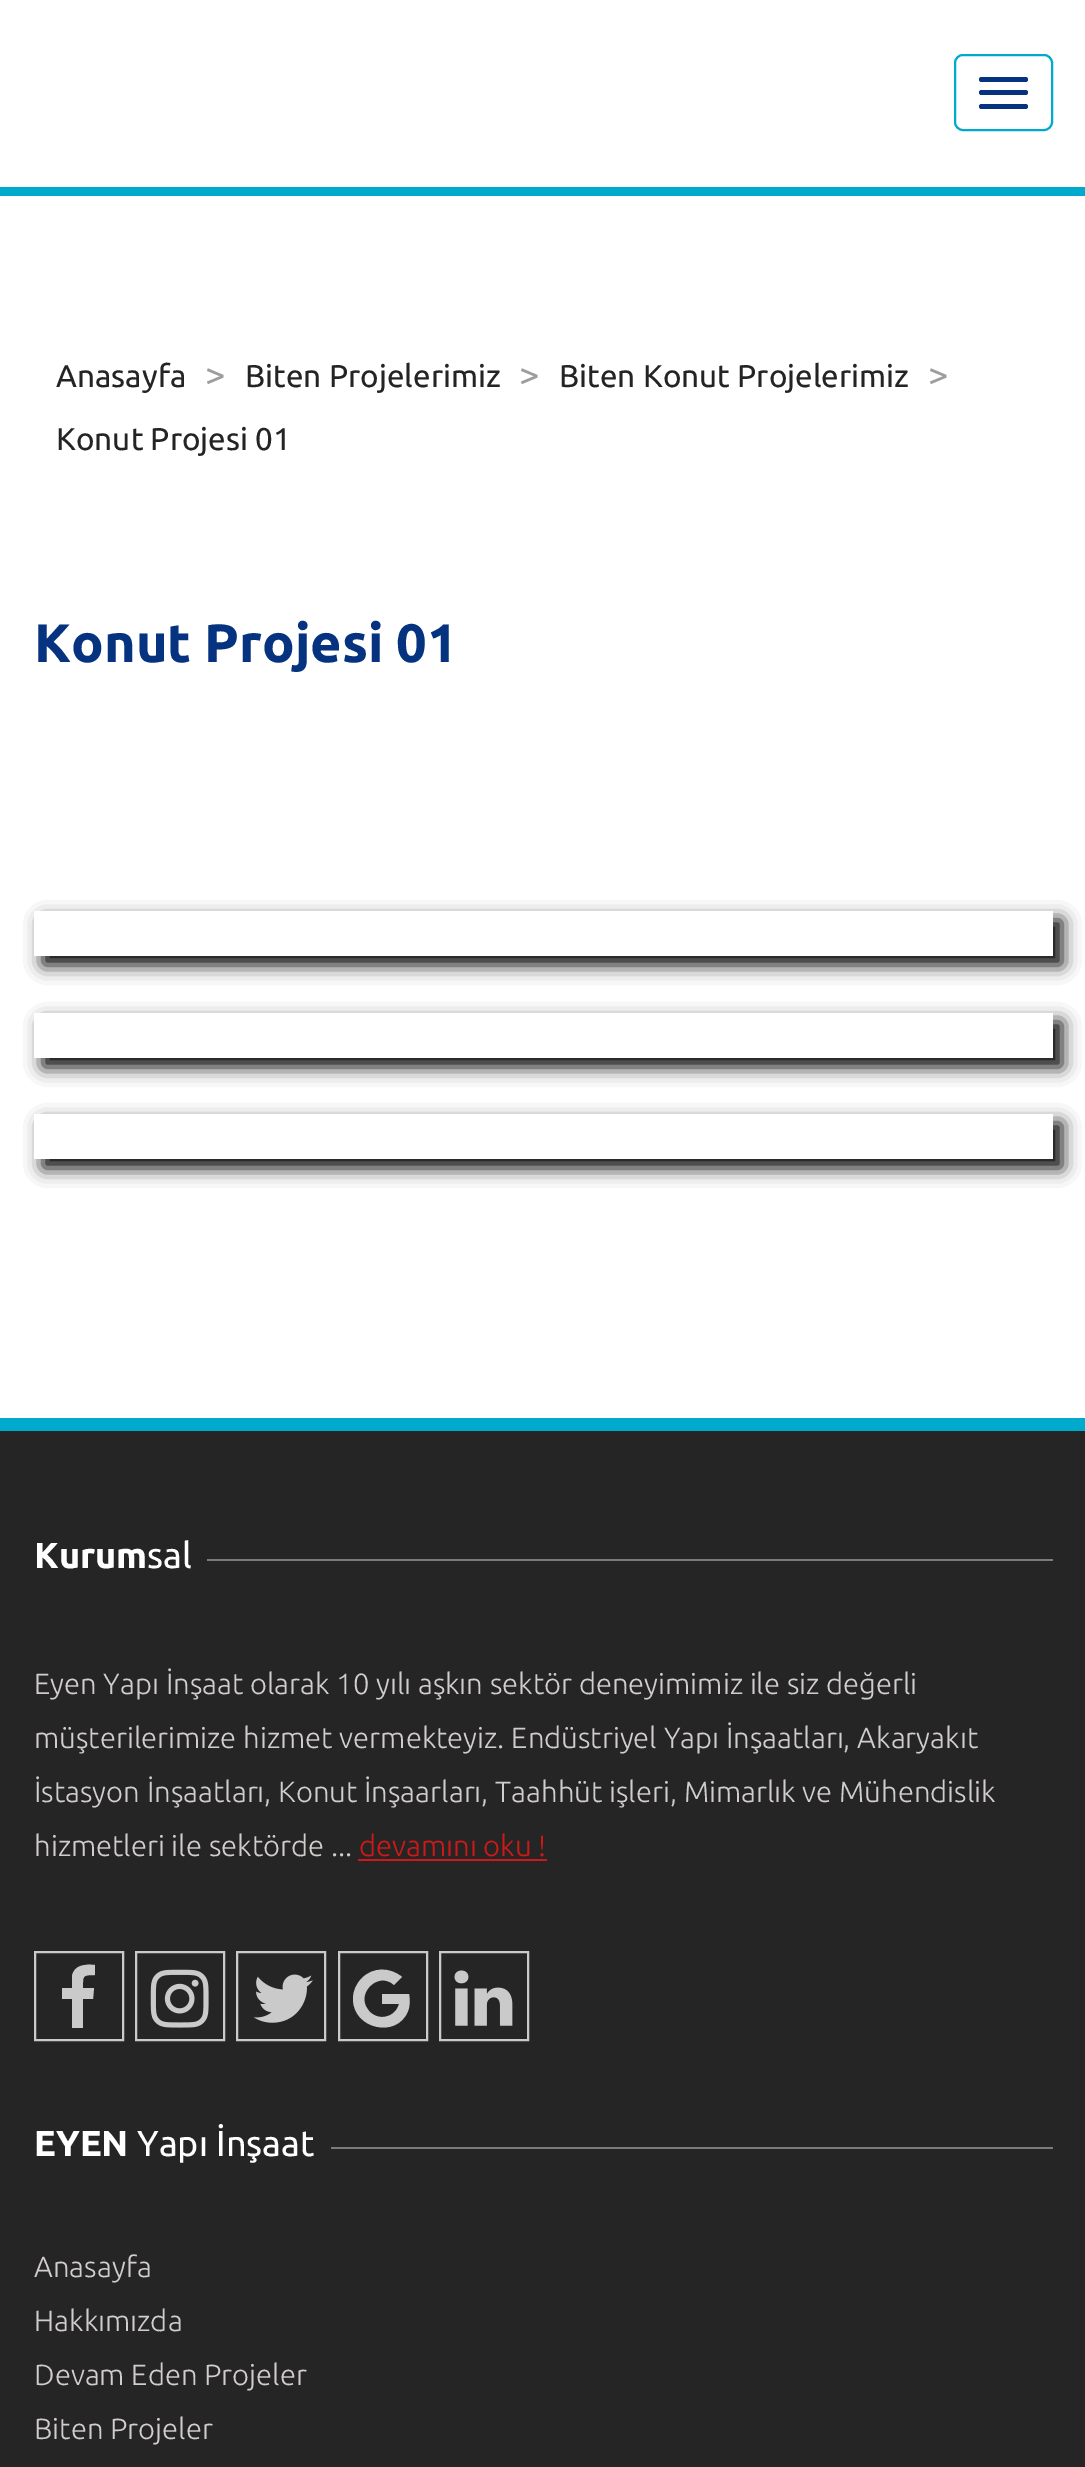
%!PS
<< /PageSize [1085 2467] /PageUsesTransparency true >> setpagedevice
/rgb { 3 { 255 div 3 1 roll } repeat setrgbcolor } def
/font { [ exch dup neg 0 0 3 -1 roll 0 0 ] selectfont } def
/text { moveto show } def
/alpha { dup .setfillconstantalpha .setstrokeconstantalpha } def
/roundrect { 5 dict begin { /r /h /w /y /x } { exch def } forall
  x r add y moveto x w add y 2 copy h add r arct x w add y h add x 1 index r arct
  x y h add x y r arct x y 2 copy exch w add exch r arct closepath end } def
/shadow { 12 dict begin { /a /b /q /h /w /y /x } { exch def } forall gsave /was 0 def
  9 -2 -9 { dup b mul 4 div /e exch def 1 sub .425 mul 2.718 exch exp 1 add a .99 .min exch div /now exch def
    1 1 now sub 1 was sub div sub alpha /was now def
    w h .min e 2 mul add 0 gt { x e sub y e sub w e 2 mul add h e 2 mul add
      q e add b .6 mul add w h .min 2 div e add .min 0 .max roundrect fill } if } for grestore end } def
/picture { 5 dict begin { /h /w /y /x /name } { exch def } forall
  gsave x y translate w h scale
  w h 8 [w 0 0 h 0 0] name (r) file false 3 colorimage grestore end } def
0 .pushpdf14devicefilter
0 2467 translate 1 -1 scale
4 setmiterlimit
255 255 255 rgb
0 0 1085 2467 rectfill
0 170 205 rgb
2 setlinewidth
955 55 97 75 8 roundrect stroke
6 51 128 rgb
979 77 49 5 2.5 roundrect fill
979 90 49 5 2.5 roundrect fill
979 104 49 5 2.5 roundrect fill
0 170 205 rgb
0 187 1085 9 rectfill
gsave
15 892 moveto 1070 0 rlineto 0 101 rlineto -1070 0 rlineto closepath 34 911 moveto 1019 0 rlineto 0 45 rlineto -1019 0 rlineto closepath eoclip newpath
0 0 0 rgb
43 920 1019 45 0 9 1 shadow
grestore
gsave
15 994 moveto 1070 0 rlineto 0 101 rlineto -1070 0 rlineto closepath 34 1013 moveto 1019 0 rlineto 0 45 rlineto -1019 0 rlineto closepath eoclip newpath
0 0 0 rgb
43 1022 1019 45 0 9 1 shadow
grestore
gsave
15 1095 moveto 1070 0 rlineto 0 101 rlineto -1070 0 rlineto closepath 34 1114 moveto 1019 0 rlineto 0 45 rlineto -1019 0 rlineto closepath eoclip newpath
0 0 0 rgb
43 1123 1019 45 0 9 1 shadow
grestore
0 1418 1085 13 rectfill
37 37 37 rgb
0 1431 1085 1036 rectfill
123 123 123 rgb
207 1559 846 2 rectfill
208 24 24 rgb
358 1859 189 2 rectfill
202 202 202 rgb
35 1952 88 88 rectstroke
95 1965 moveto -10 -1 -21 0 -23 11 rcurveto 0 12 rlineto -10 0 rlineto 0 11 rlineto 10 0 rlineto 0 29 rlineto 11 0 rlineto 0 -29 rlineto 10 0 rlineto 1 -11 rlineto -11 0 rlineto 0 -12 -1 -13 12 -13 rcurveto closepath fill
136 1952 88 88 rectstroke
(img_01.rgb) 150 1969 59 59 picture
237 1952 88 88 rectstroke
(img_02.rgb) 253 1974 60 49 picture
339 1952 88 88 rectstroke
382 1994 moveto 0 10 rlineto 17 0 rlineto -2 8 -9 13 -17 13 rcurveto -5 0 -9 -2 -12 -5 rcurveto -17 -17 8 -42 24 -27 rcurveto 8 -8 rlineto -12 -10 -29 -10 -40 1 rcurveto -6 6 -9 13 -9 21 rcurveto 0 30 44 40 55 12 rcurveto 2 -5 2 -11 1 -17 rcurveto closepath fill
440 1952 88 88 rectstroke
(img_03.rgb) 454 1970 59 56 picture
123 123 123 rgb
331 2147 722 2 rectfill
/Ubuntu-Regular 31.5 font
36 36 36 rgb
(Anasayfa) 56 387 text
/Ubuntu-Regular 36 font
157 157 157 rgb
(>) 205 387 text
/Ubuntu-Regular 31.5 font
36 36 36 rgb
(Biten Projelerimiz) 245 387 text
/Ubuntu-Regular 36 font
157 157 157 rgb
(>) 519 387 text
/Ubuntu-Regular 31.5 font
36 36 36 rgb
(Biten Konut Projelerimiz) 559 387 text
/Ubuntu-Regular 36 font
157 157 157 rgb
(>) 928 387 text
/Ubuntu-Regular 31.5 font
36 36 36 rgb
(Konut Projesi 01) 56 450 text
/Ubuntu-Bold 54 font
6 51 128 rgb
(Konut Projesi 01) 34 662 text
/Ubuntu-Bold 36 font
255 255 255 rgb
(Kurum) 34 1568 text
/Ubuntu-Regular 36 font
(sal) 147 1568 text
/Ubuntu-Light 29.25 font
210 205 205 rgb
(Eyen Yapı İnşaat olarak 10 yılı aşkın sektör deneyimimiz ile siz değerli) 34 1694 text
(müşterilerimize hizmet vermekteyiz. Endüstriyel Yapı İnşaatları, Akaryakıt) 34 1748 text
(İstasyon İnşaatları, Konut İnşaarları, Taahhüt işleri, Mimarlık ve Mühendislik) 34 1802 text
(hizmetleri ile sektörde ...) 34 1856 text
208 24 24 rgb
(devamını oku !) 359 1856 text
/Ubuntu-Bold 36 font
255 255 255 rgb
(EYEN) 34 2156 text
/Ubuntu-Regular 36 font
(Yapı İnşaat) 137 2156 text
/Ubuntu-Light 29.25 font
210 205 205 rgb
(Anasayfa) 34 2277 text
(Hakkımızda) 34 2331 text
(Devam Eden Projeler) 34 2385 text
(Biten Projeler) 34 2439 text
.poppdf14devicefilter showpage
